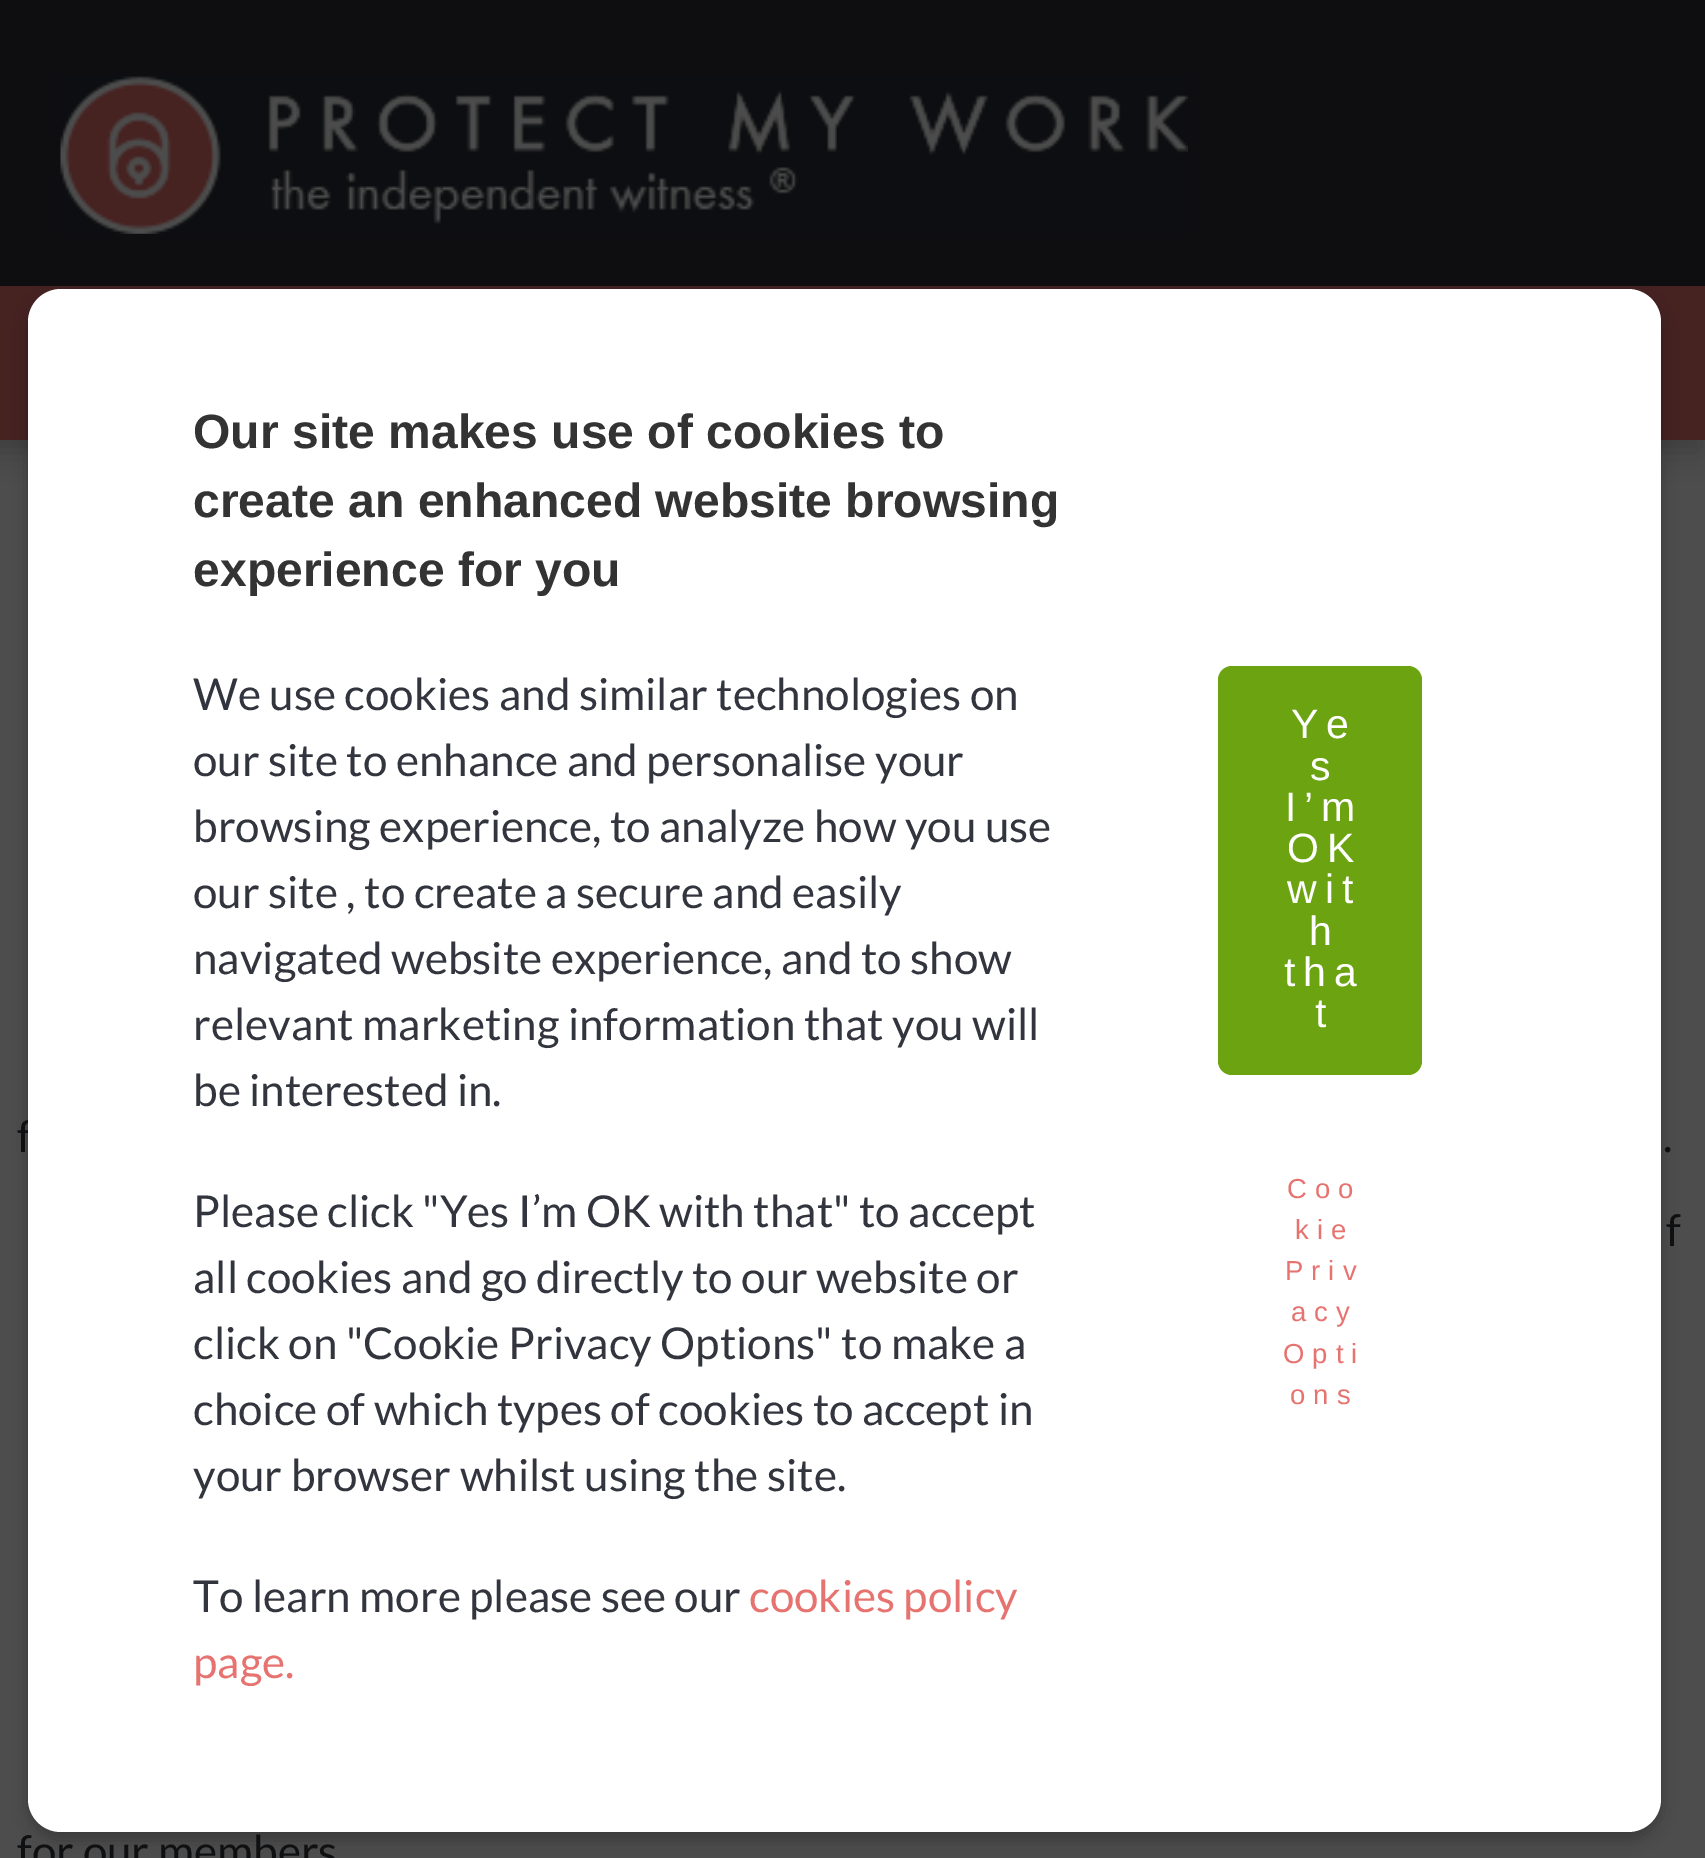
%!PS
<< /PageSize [1705 1858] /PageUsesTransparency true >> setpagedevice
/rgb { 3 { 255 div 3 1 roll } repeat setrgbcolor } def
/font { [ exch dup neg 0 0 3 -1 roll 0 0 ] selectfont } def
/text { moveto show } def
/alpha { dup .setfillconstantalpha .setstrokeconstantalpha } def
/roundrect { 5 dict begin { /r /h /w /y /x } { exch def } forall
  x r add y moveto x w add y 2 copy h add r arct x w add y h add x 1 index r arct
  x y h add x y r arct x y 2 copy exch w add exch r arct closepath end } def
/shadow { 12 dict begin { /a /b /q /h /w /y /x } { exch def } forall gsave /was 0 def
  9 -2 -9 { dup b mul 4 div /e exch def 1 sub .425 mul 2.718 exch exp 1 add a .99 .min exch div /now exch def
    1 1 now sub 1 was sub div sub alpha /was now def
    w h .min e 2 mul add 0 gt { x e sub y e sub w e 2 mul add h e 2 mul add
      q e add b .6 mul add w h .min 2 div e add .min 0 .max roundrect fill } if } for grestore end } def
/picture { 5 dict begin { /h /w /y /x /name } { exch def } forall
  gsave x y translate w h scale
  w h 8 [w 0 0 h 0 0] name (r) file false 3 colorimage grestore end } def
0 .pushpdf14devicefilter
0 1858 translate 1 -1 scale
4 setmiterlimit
77 77 77 rgb
0 0 1705 1858 rectfill
14 14 17 rgb
0 0 1705 286 rectfill
1 1 1 rgb
-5 297 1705 154 0 14 0.2 shadow
70 34 33 rgb
0 286 1705 154 rectfill
0 0 0 rgb
28 297 1633 1543 33 8 0.23 shadow
(img_01.rgb) 60 76 1128 158 picture
/Lato-Regular 44 font
15 16 18 rgb
(f) 17 1152 text
255 255 255 rgb
28 289 1633 1543 33 roundrect fill
/LiberationSans-Regular 27.5 font
230 115 111 rgb
1290 1404 moveto 8 0 (ons) ashow
1283 1363 moveto 8 0 (Opti) ashow
1291 1321 moveto 8 0 (acy) ashow
1285 1280 moveto 8 0 (Priv) ashow
1295 1239 moveto 8 0 (kie) ashow
1287 1198 moveto 8 0 (Coo) ashow
107 164 16 rgb
1218 666 204 409 14 roundrect fill
/LiberationSans-Regular 41 font
255 255 255 rgb
1315 1027 moveto 8 0 (t) ashow
1284 986 moveto 8 0 (tha) ashow
1309 945 moveto 8 0 (h) ashow
1287 903 moveto 8 0 (wit) ashow
1287 862 moveto 8 0 (OK) ashow
1285 821 moveto 8 0 (I’m) ashow
1310 780 moveto 8 0 (s) ashow
1291 738 moveto 8 0 (Ye) ashow
/Lato-Regular 44 font
230 115 111 rgb
(page.) 193 1678 text
(cookies policy) 749 1612 text
50 53 61 rgb
(To learn more please see our) 193 1612 text
(your browser whilst using the site.) 193 1491 text
(choice of which types of cookies to accept in) 193 1425 text
(click on "Cookie Privacy Options" to make a) 193 1359 text
(all cookies and go directly to our website or) 193 1293 text
(Please click "Yes I’m OK with that" to accept) 193 1227 text
(be interested in.) 193 1106 text
(relevant marketing information that you will) 193 1040 text
(navigated website experience, and to show) 193 974 text
(our site , to create a secure and easily) 193 908 text
(browsing experience, to analyze how you use) 193 842 text
(our site to enhance and personalise your) 193 776 text
(We use cookies and similar technologies on) 193 710 text
/LiberationSans-Bold 48.1 font
51 51 51 rgb
(experience for you) 193 586 text
(create an enhanced website browsing) 193 517 text
(Our site makes use of cookies to) 193 448 text
/Lato-Regular 44 font
15 16 18 rgb
(.) 1663 1152 text
(f) 1666 1246 text
(for our members) 17 1867 text
.poppdf14devicefilter showpage
